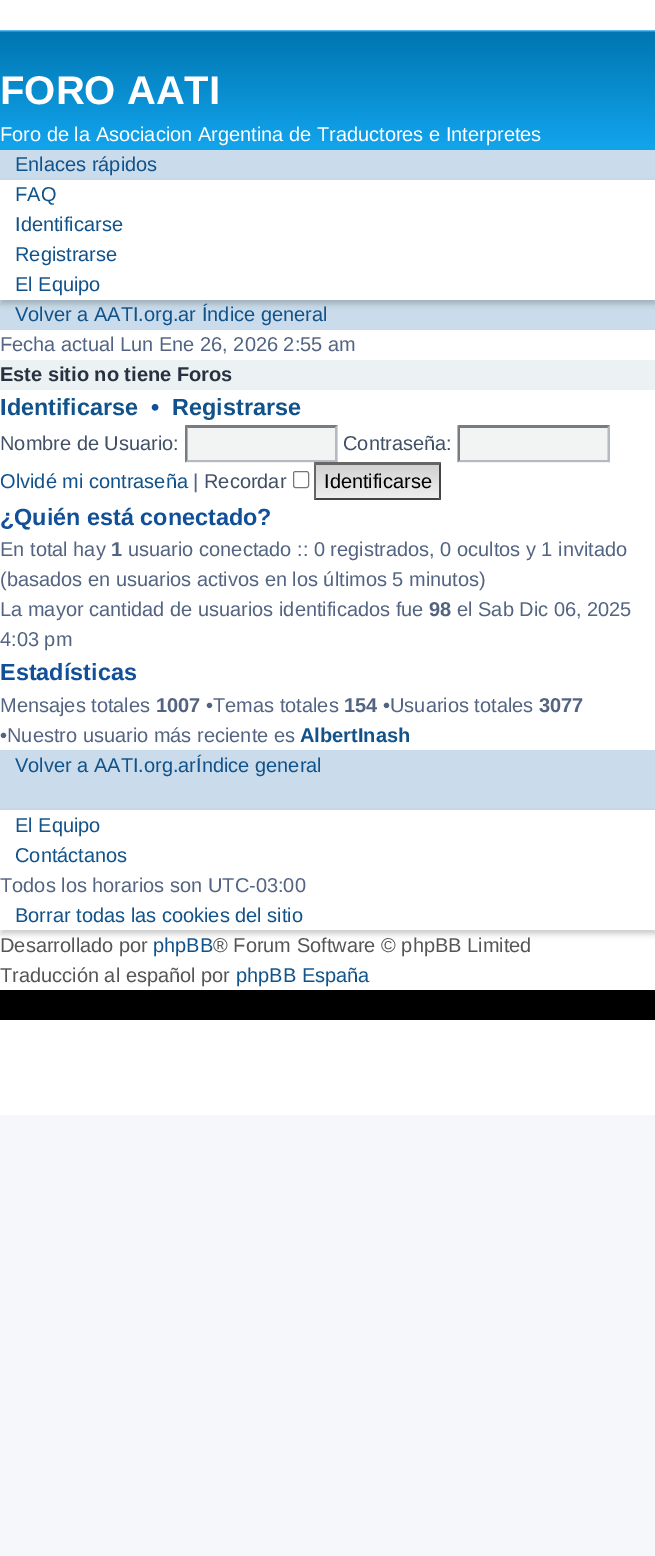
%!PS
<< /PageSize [655 1556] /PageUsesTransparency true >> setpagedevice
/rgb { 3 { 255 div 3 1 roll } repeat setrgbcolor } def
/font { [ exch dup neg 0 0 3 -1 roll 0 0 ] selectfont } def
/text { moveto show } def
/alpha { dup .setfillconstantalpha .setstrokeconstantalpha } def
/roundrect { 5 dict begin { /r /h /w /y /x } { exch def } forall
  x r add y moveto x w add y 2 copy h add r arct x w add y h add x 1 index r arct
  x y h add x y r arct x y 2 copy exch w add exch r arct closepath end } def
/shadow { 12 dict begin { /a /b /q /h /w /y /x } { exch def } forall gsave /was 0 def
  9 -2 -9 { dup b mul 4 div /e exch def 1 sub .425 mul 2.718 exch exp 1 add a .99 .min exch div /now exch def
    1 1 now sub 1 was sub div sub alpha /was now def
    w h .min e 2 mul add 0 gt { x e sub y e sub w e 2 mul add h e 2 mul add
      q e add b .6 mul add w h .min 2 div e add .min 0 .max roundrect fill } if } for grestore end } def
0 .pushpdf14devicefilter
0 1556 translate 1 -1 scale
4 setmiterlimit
245 247 250 rgb
0 0 655 1556 rectfill
255 255 255 rgb
0 0 655 1115 rectfill
gsave 0 30 moveto 655 0 rlineto 0 120 rlineto -655 0 rlineto closepath clip newpath
<< /ShadingType 2 /ColorSpace /DeviceRGB /Coords [328 30 328 150] /Extend [true true] /Function << /FunctionType 3 /Domain [0 1] /Functions [<< /FunctionType 2 /Domain [0 1] /C0 [0.416 0.808 1] /C1 [0 0.463 0.694] /N 1 >> << /FunctionType 2 /Domain [0 1] /C0 [0 0.463 0.694] /C1 [0.071 0.639 0.922] /N 1 >> << /FunctionType 2 /Domain [0 1] /C0 [0.071 0.639 0.922] /C1 [0.071 0.639 0.922] /N 1 >>] /Bounds [0.02 0.96] /Encode [0 1 0 1 0 1] >> >> shfill grestore
202 220 235 rgb
0 150 655 180 rectfill
0 0 0 rgb
1 184 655 120 0 3 0.2 shadow
255 255 255 rgb
0 180 655 120 rectfill
236 241 243 rgb
0 360 655 30 rectfill
242 243 243 rgb
185 425 153 38 rectfill
120 124 128 rgb
185 425 moveto 153 0 rlineto -3 3 rlineto -147 0 rlineto closepath fill
180 186 192 rgb
337.5 425 moveto 0 37.5 rlineto -2.5 -2.5 rlineto 0 -32.5 rlineto closepath fill
338 462 moveto -153 0 rlineto 3 -2 rlineto 147 0 rlineto closepath fill
120 124 128 rgb
185 462.5 moveto 0 -37.5 rlineto 2.5 2.5 rlineto 0 32.5 rlineto closepath fill
242 243 243 rgb
458 425 152 38 rectfill
120 124 128 rgb
458 425 moveto 152 0 rlineto -2 3 rlineto -148 0 rlineto closepath fill
180 186 192 rgb
610 425 moveto 0 37.5 rlineto -2.5 -2.5 rlineto 0 -32.5 rlineto closepath fill
610 462 moveto -152 0 rlineto 2 -2 rlineto 148 0 rlineto closepath fill
120 124 128 rgb
457.5 462.5 moveto 0 -37.5 rlineto 2.5 2.5 rlineto 0 32.5 rlineto closepath fill
118 118 118 rgb
293.5 471.5 15 16 2 roundrect stroke
gsave 315 465 moveto 125 0 rlineto 0 33 rlineto -125 0 rlineto closepath clip newpath
<< /ShadingType 2 /ColorSpace /DeviceRGB /Coords [378 465 378 498] /Extend [true true] /Function << /FunctionType 2 /Domain [0 1] /C0 [0.824 0.824 0.824] /C1 [0.937 0.937 0.937] /N 1 >> >> shfill grestore
gsave 314 498 moveto 127 0 rlineto 0 2 rlineto -127 0 rlineto closepath clip newpath
<< /ShadingType 2 /ColorSpace /DeviceRGB /Coords [378 498 378 530] /Extend [true true] /Function << /FunctionType 2 /Domain [0 1] /C0 [0.824 0.824 0.824] /C1 [0.937 0.937 0.937] /N 1 >> >> shfill grestore
102 102 102 rgb
314 462 moveto 127 0 rlineto -2 3 rlineto -123 0 rlineto closepath fill
68 68 68 rgb
441 462.5 moveto 0 37.5 rlineto -2 -2.5 rlineto 0 -32.5 rlineto closepath fill
441 500 moveto -127 0 rlineto 2 -2 rlineto 123 0 rlineto closepath fill
102 102 102 rgb
314 500 moveto 0 -37.5 rlineto 2 2.5 rlineto 0 32.5 rlineto closepath fill
202 220 235 rgb
0 750 655 60 rectfill
0 0 0 rgb
1 814 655 120 0 3 0.2 shadow
255 255 255 rgb
0 810 655 120 rectfill
0 0 0 rgb
0 990 655 30 rectfill
/LiberationSans-Bold 40 font
255 255 255 rgb
(FORO AATI) 0 104 text
/LiberationSans-Regular 20 font
(Foro de la Asociacion Argentina de Traductores e Interpretes) 0 141 text
16 82 137 rgb
(Enlaces rápidos) 15 171 text
(FAQ) 15 201 text
(Identificarse) 15 231 text
(Registrarse) 15 261 text
(El Equipo) 15 291 text
(Volver a AATI.org.ar Índice general) 15 321 text
83 100 130 rgb
(Fecha actual Lun Ene 26, 2026 2:55 am) 0 351 text
/LiberationSans-Bold 20 font
40 49 63 rgb
(Este sitio no tiene Foros) 0 381 text
/LiberationSans-Bold 23.4 font
16 82 137 rgb
(Identificarse) 0 415 text
17 80 152 rgb
(•) 151 415 text
16 82 137 rgb
(Registrarse) 172 415 text
/LiberationSans-Regular 20 font
66 80 103 rgb
(Nombre de Usuario:) 0 450 text
(Contraseña:) 343 450 text
16 82 137 rgb
(Olvidé mi contraseña) 0 488 text
83 100 130 rgb
(|) 193 488 text
66 80 103 rgb
(Recordar) 204 488 text
0 0 0 rgb
(Identificarse) 324 488 text
/LiberationSans-Bold 23.4 font
17 80 152 rgb
(¿Quién está conectado?) 0 525 text
/LiberationSans-Regular 20 font
83 100 130 rgb
(En total hay) 0 556 text
/LiberationSans-Bold 20 font
(1) 111 556 text
/LiberationSans-Regular 20 font
(usuario conectado :: 0 registrados, 0 ocultos y 1 invitado) 128 556 text
(\(basados en usuarios activos en los últimos 5 minutos\)) 0 586 text
(La mayor cantidad de usuarios identificados fue) 0 616 text
/LiberationSans-Bold 20 font
(98) 429 616 text
/LiberationSans-Regular 20 font
(el Sab Dic 06, 2025) 457 616 text
(4:03 pm) 0 646 text
/LiberationSans-Bold 23.4 font
17 80 152 rgb
(Estadísticas) 0 680 text
/LiberationSans-Regular 20 font
83 100 130 rgb
(Mensajes totales) 0 712 text
/LiberationSans-Bold 20 font
(1007) 156 712 text
/LiberationSans-Regular 20 font
(•Temas totales) 206 712 text
/LiberationSans-Bold 20 font
(154) 344 712 text
/LiberationSans-Regular 20 font
(•Usuarios totales) 383 712 text
/LiberationSans-Bold 20 font
(3077) 539 712 text
/LiberationSans-Regular 20 font
(•Nuestro usuario más reciente es) 0 742 text
/LiberationSans-Bold 20 font
16 82 137 rgb
(AlbertInash) 300 742 text
/LiberationSans-Regular 20 font
(Volver a AATI.org.arÍndice general) 15 772 text
(El Equipo) 15 832 text
(Contáctanos) 15 862 text
83 100 130 rgb
(Todos los horarios son UTC-03:00) 0 892 text
16 82 137 rgb
(Borrar todas las cookies del sitio) 15 922 text
85 85 85 rgb
(Desarrollado por) 0 952 text
16 82 137 rgb
(phpBB) 153 952 text
85 85 85 rgb
(® Forum Software © phpBB Limited) 213 952 text
(Traducción al español por) 0 982 text
16 82 137 rgb
(phpBB España) 236 982 text
.poppdf14devicefilter showpage
